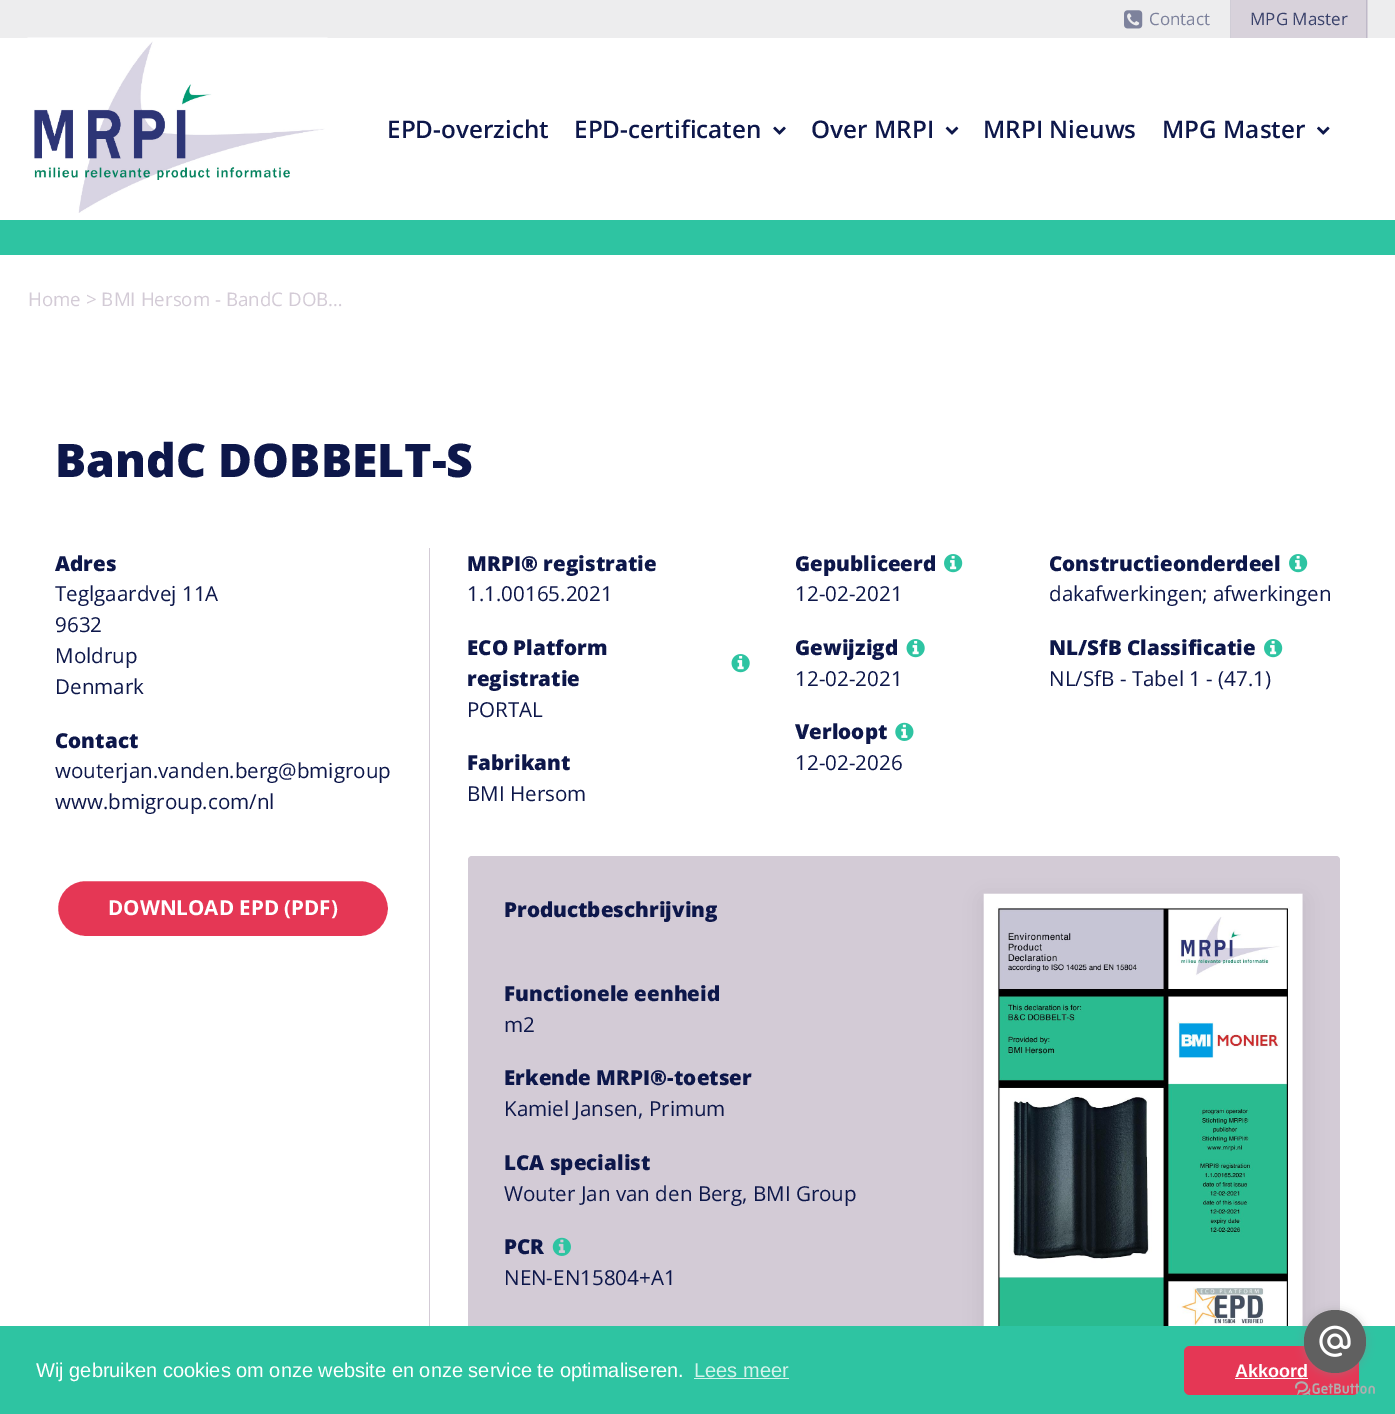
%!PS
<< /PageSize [1395 1414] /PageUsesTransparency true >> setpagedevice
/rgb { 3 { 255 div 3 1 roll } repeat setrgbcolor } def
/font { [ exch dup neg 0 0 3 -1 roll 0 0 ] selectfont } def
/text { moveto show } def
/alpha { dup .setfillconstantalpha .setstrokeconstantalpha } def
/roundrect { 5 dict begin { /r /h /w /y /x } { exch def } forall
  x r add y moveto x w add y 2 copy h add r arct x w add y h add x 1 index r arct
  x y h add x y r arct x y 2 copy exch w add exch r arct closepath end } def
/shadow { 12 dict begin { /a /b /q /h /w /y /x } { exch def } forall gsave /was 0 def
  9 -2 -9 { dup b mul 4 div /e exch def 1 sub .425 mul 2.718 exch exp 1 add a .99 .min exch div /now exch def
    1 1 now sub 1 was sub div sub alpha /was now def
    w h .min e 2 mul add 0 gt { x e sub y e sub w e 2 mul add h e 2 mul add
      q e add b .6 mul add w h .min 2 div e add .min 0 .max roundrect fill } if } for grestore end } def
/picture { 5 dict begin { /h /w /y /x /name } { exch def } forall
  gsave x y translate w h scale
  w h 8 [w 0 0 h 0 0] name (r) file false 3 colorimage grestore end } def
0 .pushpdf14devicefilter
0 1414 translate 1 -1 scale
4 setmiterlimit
255 255 255 rgb
0 0 1395 1414 rectfill
237 237 238 rgb
0 0 1395 38 rectfill
208 205 214 rgb
1230 0 1 38 rectfill
(img_01.rgb) 1124 10 19 19 picture
216 210 219 rgb
1231 0 137 38 rectfill
190 185 200 rgb
1366 0 1 38 rectfill
(img_02.rgb) 27 37 301 176 picture
(img_03.rgb) 773 126 13 9 picture
(img_04.rgb) 945 126 14 9 picture
(img_05.rgb) 1317 126 13 9 picture
46 196 162 rgb
0 220 1395 35 rectfill
229 55 85 rgb
56.5 879.5 333 58 29 roundrect gsave fill grestore
255 255 255 rgb
3 setlinewidth
stroke
211 203 214 rgb
429 548 1 778 rectfill
(img_06.rgb) 731 654 19 19 picture
(img_07.rgb) 944 554 19 19 picture
(img_06.rgb) 906 639 19 19 picture
(img_08.rgb) 895 722 19 19 picture
(img_07.rgb) 1289 554 19 19 picture
(img_07.rgb) 1264 639 19 19 picture
468 856 872 528 4 roundrect fill
(img_09.rgb) 552 1237 19 19 picture
0 0 0 rgb
984 900 319 453 0 9.5 0.08 shadow
(img_10.rgb) 983 893 320 433 picture
46 196 162 rgb
0 1326 1395 88 rectfill
213 243 236 rgb
694 1378 95 1 rectfill
229 55 85 rgb
1184 1346 175 49 6 roundrect fill
255 255 255 rgb
1235 1378 73 1 rectfill
(img_12.rgb) 1295 1381 80 14 picture
136 136 136 rgb
1304 1311 62 63 31 4.5 0.4 shadow
/OpenSans-Regular 17 font
125 130 156 rgb
(Contact) 1149 25 text
58 66 107 rgb
(MPG Master) 1250 25 text
/OpenSans-SemiBold 24.25 font
13 23 74 rgb
(EPD-overzicht) 387 138 text
(EPD-certificaten) 574 138 text
(Over MRPI) 811 138 text
(MRPI Nieuws) 983 138 text
(MPG Master) 1162 138 text
/OpenSans-Regular 18.75 font
211 203 214 rgb
(Home > BMI Hersom - BandC DOB…) 28 306 text
/OpenSans-ExtraBold 46.4 font
13 23 74 rgb
(BandC DOBBELT-S) 55 477 text
/OpenSans-ExtraBold 20.6 font
(Adres) 55 571 text
/OpenSans-Regular 20.6 font
(Teglgaardvej 11A) 55 601 text
(9632) 55 632 text
(Moldrup) 55 663 text
(Denmark) 55 694 text
/OpenSans-ExtraBold 20.6 font
(Contact) 55 748 text
/OpenSans-Regular 20.6 font
(wouterjan.vanden.berg@bmigroup) 55 778 text
(www.bmigroup.com/nl) 55 809 text
/OpenSans-Bold 20.6 font
255 255 255 rgb
(DOWNLOAD EPD \(PDF\)) 108 915 text
/OpenSans-ExtraBold 20.6 font
13 23 74 rgb
(MRPI® registratie) 467 571 text
/OpenSans-Regular 20.6 font
(1.1.00165.2021) 467 601 text
/OpenSans-ExtraBold 20.6 font
(ECO Platform) 467 655 text
(registratie) 467 686 text
/OpenSans-Regular 20.6 font
(PORTAL) 467 717 text
/OpenSans-ExtraBold 20.6 font
(Fabrikant) 467 770 text
/OpenSans-Regular 20.6 font
(BMI Hersom) 467 801 text
/OpenSans-ExtraBold 20.6 font
(Gepubliceerd) 795 571 text
/OpenSans-Regular 20.6 font
(12-02-2021) 795 601 text
/OpenSans-ExtraBold 20.6 font
(Gewijzigd) 795 655 text
/OpenSans-Regular 20.6 font
(12-02-2021) 795 686 text
/OpenSans-ExtraBold 20.6 font
(Verloopt) 795 739 text
/OpenSans-Regular 20.6 font
(12-02-2026) 795 770 text
/OpenSans-ExtraBold 20.6 font
(Constructieonderdeel) 1049 571 text
/OpenSans-Regular 20.6 font
(dakafwerkingen; afwerkingen) 1049 601 text
/OpenSans-ExtraBold 20.6 font
(NL/SfB Classificatie) 1049 655 text
/OpenSans-Regular 20.6 font
(NL/SfB - Tabel 1 - \(47.1\)) 1049 686 text
/OpenSans-ExtraBold 20.6 font
(Productbeschrijving) 504 917 text
(Functionele eenheid) 504 1001 text
/OpenSans-Regular 20.6 font
(m2) 504 1032 text
/OpenSans-ExtraBold 20.6 font
(Erkende MRPI®-toetser) 504 1085 text
/OpenSans-Regular 20.6 font
(Kamiel Jansen, Primum) 504 1116 text
/OpenSans-ExtraBold 20.6 font
(LCA specialist) 504 1170 text
/OpenSans-Regular 20.6 font
(Wouter Jan van den Berg, BMI Group) 504 1201 text
/OpenSans-ExtraBold 20.6 font
(PCR) 504 1254 text
/OpenSans-Regular 20.6 font
(NEN-EN15804+A1) 504 1285 text
/LiberationSans-Regular 20 font
255 255 255 rgb
(Wij gebruiken cookies om onze website en onze service te optimaliseren.) 36 1377 text
213 243 236 rgb
(Lees meer) 694 1377 text
/LiberationSans-Bold 18 font
255 255 255 rgb
(Akkoord) 1235 1377 text
96 96 96 rgb
1304 1310 62 63 31 roundrect fill
(img_11.rgb) 1319 1325 32 32 picture
.poppdf14devicefilter showpage
